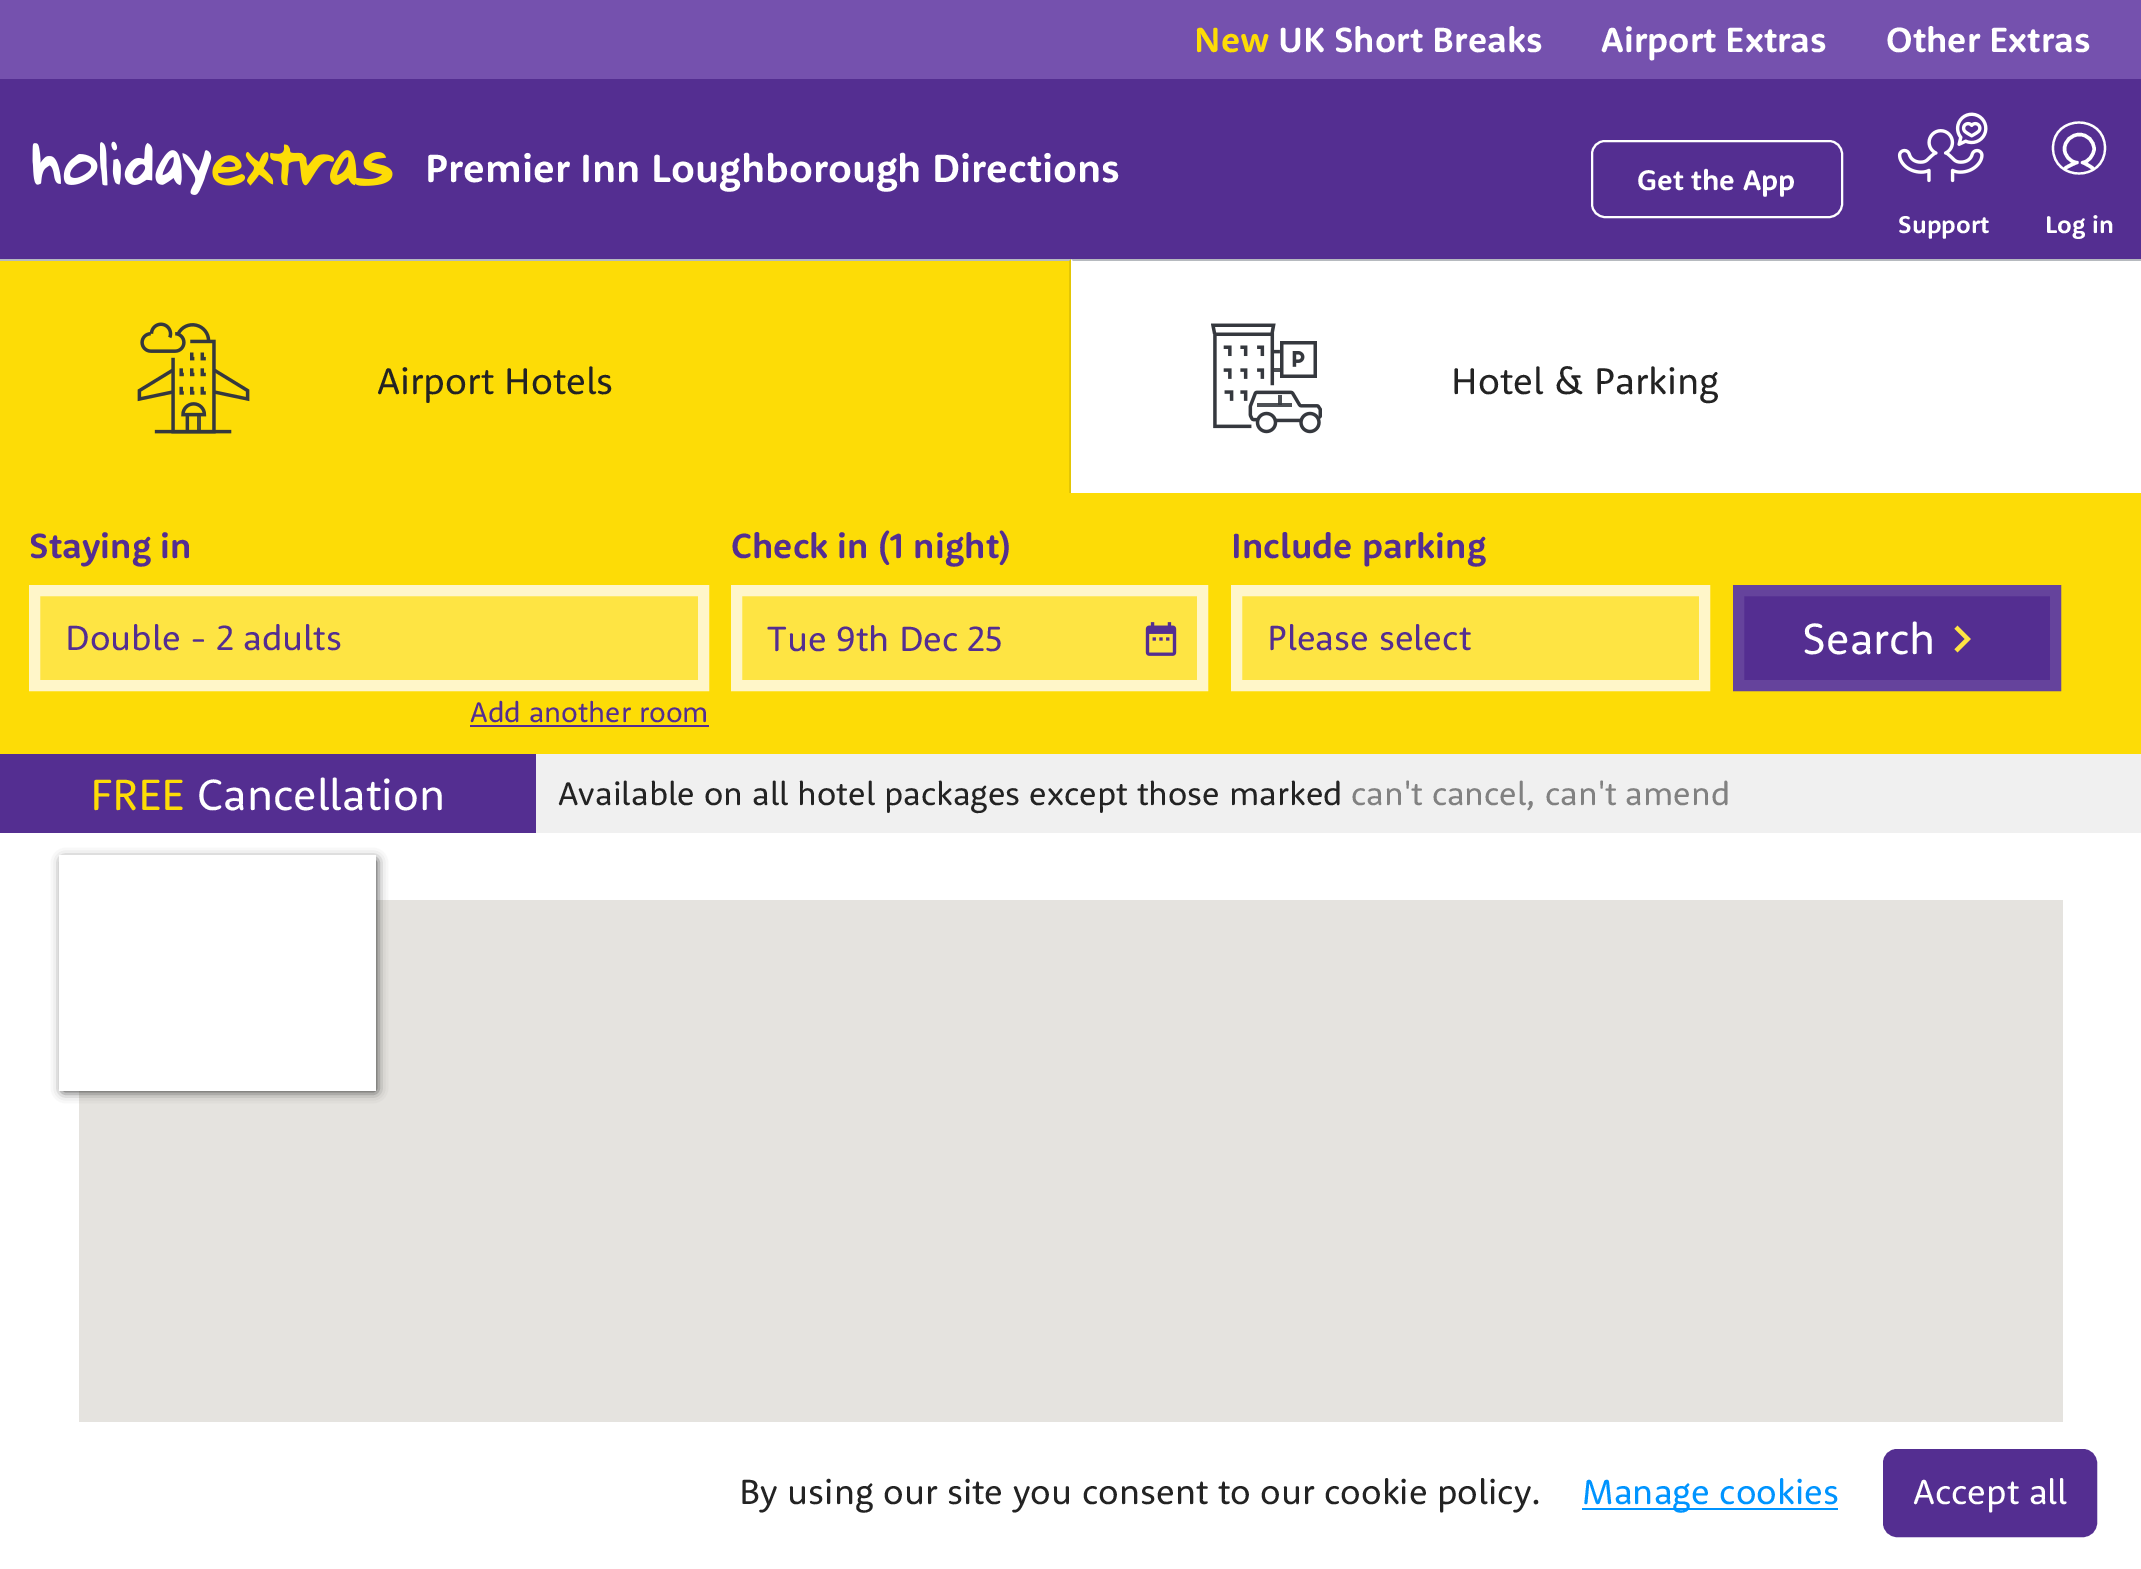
%!PS
<< /PageSize [2141 1569] /PageUsesTransparency true >> setpagedevice
/rgb { 3 { 255 div 3 1 roll } repeat setrgbcolor } def
/font { [ exch dup neg 0 0 3 -1 roll 0 0 ] selectfont } def
/text { moveto show } def
/alpha { dup .setfillconstantalpha .setstrokeconstantalpha } def
/roundrect { 5 dict begin { /r /h /w /y /x } { exch def } forall
  x r add y moveto x w add y 2 copy h add r arct x w add y h add x 1 index r arct
  x y h add x y r arct x y 2 copy exch w add exch r arct closepath end } def
/shadow { 12 dict begin { /a /b /q /h /w /y /x } { exch def } forall gsave /was 0 def
  9 -2 -9 { dup b mul 4 div /e exch def 1 sub .425 mul 2.718 exch exp 1 add a .99 .min exch div /now exch def
    1 1 now sub 1 was sub div sub alpha /was now def
    w h .min e 2 mul add 0 gt { x e sub y e sub w e 2 mul add h e 2 mul add
      q e add b .6 mul add w h .min 2 div e add .min 0 .max roundrect fill } if } for grestore end } def
/picture { 5 dict begin { /h /w /y /x /name } { exch def } forall
  gsave x y translate w h scale
  w h 8 [w 0 0 h 0 0] name (r) file false 3 colorimage grestore end } def
0 .pushpdf14devicefilter
0 1569 translate 1 -1 scale
4 setmiterlimit
255 255 255 rgb
0 0 2141 1569 rectfill
84 46 145 rgb
0 79 2141 180 rectfill
117 81 174 rgb
0 0 2141 79 rectfill
(img_01.rgb) 32 141 361 54 picture
255 255 255 rgb
2 setlinewidth
1592 141 250 76 13 roundrect stroke
(img_02.rgb) 1897 112 91 71 picture
3.4 setlinewidth
1 setlinecap
1 setlinejoin
2065.5 168 moveto 2 -1.5 9.5 -5 11.5 -5.5 rcurveto -7 0 -12.5 -7.5 -12.5 -13.5 rcurveto 0 -8 7 -14.5 15 -14.5 rcurveto 8 0 14.5 6.5 14.5 14.5 rcurveto 0 6 -6 13.5 -11.5 13.5 rcurveto 2 0.5 8 4 10 5.5 rcurveto stroke
2.2 setlinewidth
0 setlinecap
0 setlinejoin
2105 148 moveto 0 -34 -52 -34 -52 0 rcurveto 0 34 52 34 52 0 rcurveto closepath stroke
253 220 6 rgb
0 259 1071 234 rectfill
182 186 191 rgb
-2 259 moveto 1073 0 rlineto -2 2 rlineto -1069 0 rlineto closepath fill
gsave
0 259 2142 234 rectclip
0.1 alpha
0 0 0 rgb
1071 259 moveto 0 236 rlineto -2 0 rlineto 0 -234 rlineto closepath fill
grestore
(img_03.rgb) 137 322 113 112 picture
1071 259 moveto 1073 0 rlineto -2 2 rlineto -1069 0 rlineto closepath fill
(img_04.rgb) 1211 323 111 111 picture
253 220 6 rgb
0 493 2141 261 rectfill
254 228 67 rgb
34.5 590.5 moveto 669 0 rlineto 0 95 rlineto -669 0 rlineto closepath gsave fill grestore
255 246 201 rgb
11 setlinewidth
stroke
84 46 145 rgb
470 725 239 2 rectfill
254 228 67 rgb
742 596 455 84 rectfill
(img_05.rgb) 1145 622 32 34 picture
255 246 201 rgb
736.5 590.5 466 95 rectstroke
254 228 67 rgb
1236.5 590.5 moveto 468 0 rlineto 0 95 rlineto -468 0 rlineto closepath gsave fill grestore
255 246 201 rgb
stroke
84 46 145 rgb
1738.5 590.5 moveto 317 0 rlineto 0 95 rlineto -317 0 rlineto closepath gsave fill grestore
101 67 156 rgb
stroke
(img_06.rgb) 1954 625 17 28 picture
84 46 145 rgb
0 754 536 79 rectfill
240 240 240 rgb
536 754 1605 79 rectfill
229 227 223 rgb
79 900 1984 522 rectfill
35 35 35 rgb
63 860 313 231 0 5.5 1 shadow
255 255 255 rgb
59 855 317 236 rectfill
0 148 255 rgb
1582 1508 256 2 rectfill
84 46 145 rgb
1884 1450 212 86 13 roundrect gsave fill grestore
2 setlinewidth
stroke
/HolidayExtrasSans-Bold 36 font
253 220 6 rgb
(New) 1194 52 text
255 255 255 rgb
(UK Short Breaks) 1278 52 text
(Airport Extras) 1601 52 text
(Other Extras) 1886 52 text
/HolidayExtrasSans-Bold 40.5 font
(Premier Inn Loughborough Directions) 425 182 text
/HolidayExtrasSans-Bold 29.25 font
(Get the App) 1637 190 text
/HolidayExtrasSans-Bold 25 font
(Support) 1898 233 text
(Log in) 2045 233 text
/HolidayExtrasSans-Regular 38.25 font
35 35 35 rgb
(Airport Hotels) 377 394 text
(Hotel & Parking) 1451 394 text
/HolidayExtrasSans-Bold 36 font
84 46 145 rgb
(Staying in) 29 558 text
/HolidayExtrasSans-Regular 36 font
(Double - 2 adults) 65 650 text
/HolidayExtrasSans-Regular 29.25 font
(Add another room) 470 722 text
/HolidayExtrasSans-Bold 36 font
(Check in \(1 night\)) 731 558 text
/HolidayExtrasSans-Regular 36 font
(Tue 9th Dec 25) 767 651 text
/HolidayExtrasSans-Bold 36 font
(Include parking) 1231 558 text
/HolidayExtrasSans-Regular 36 font
(Please select) 1267 650 text
/HolidayExtrasSans-Regular 45 font
255 255 255 rgb
(Search) 1802 654 text
253 220 6 rgb
(FREE) 90 810 text
255 255 255 rgb
(Cancellation) 197 810 text
/HolidayExtrasSans-Regular 33.75 font
35 35 35 rgb
(Available on all hotel packages except those marked) 558 805 text
129 129 129 rgb
(can't cancel, can't amend) 1351 805 text
/HolidayExtrasSans-Regular 36 font
35 35 35 rgb
(By using our site you consent to our cookie policy.) 739 1504 text
0 148 255 rgb
(Manage cookies) 1582 1504 text
255 255 255 rgb
(Accept all) 1913 1504 text
.poppdf14devicefilter showpage
